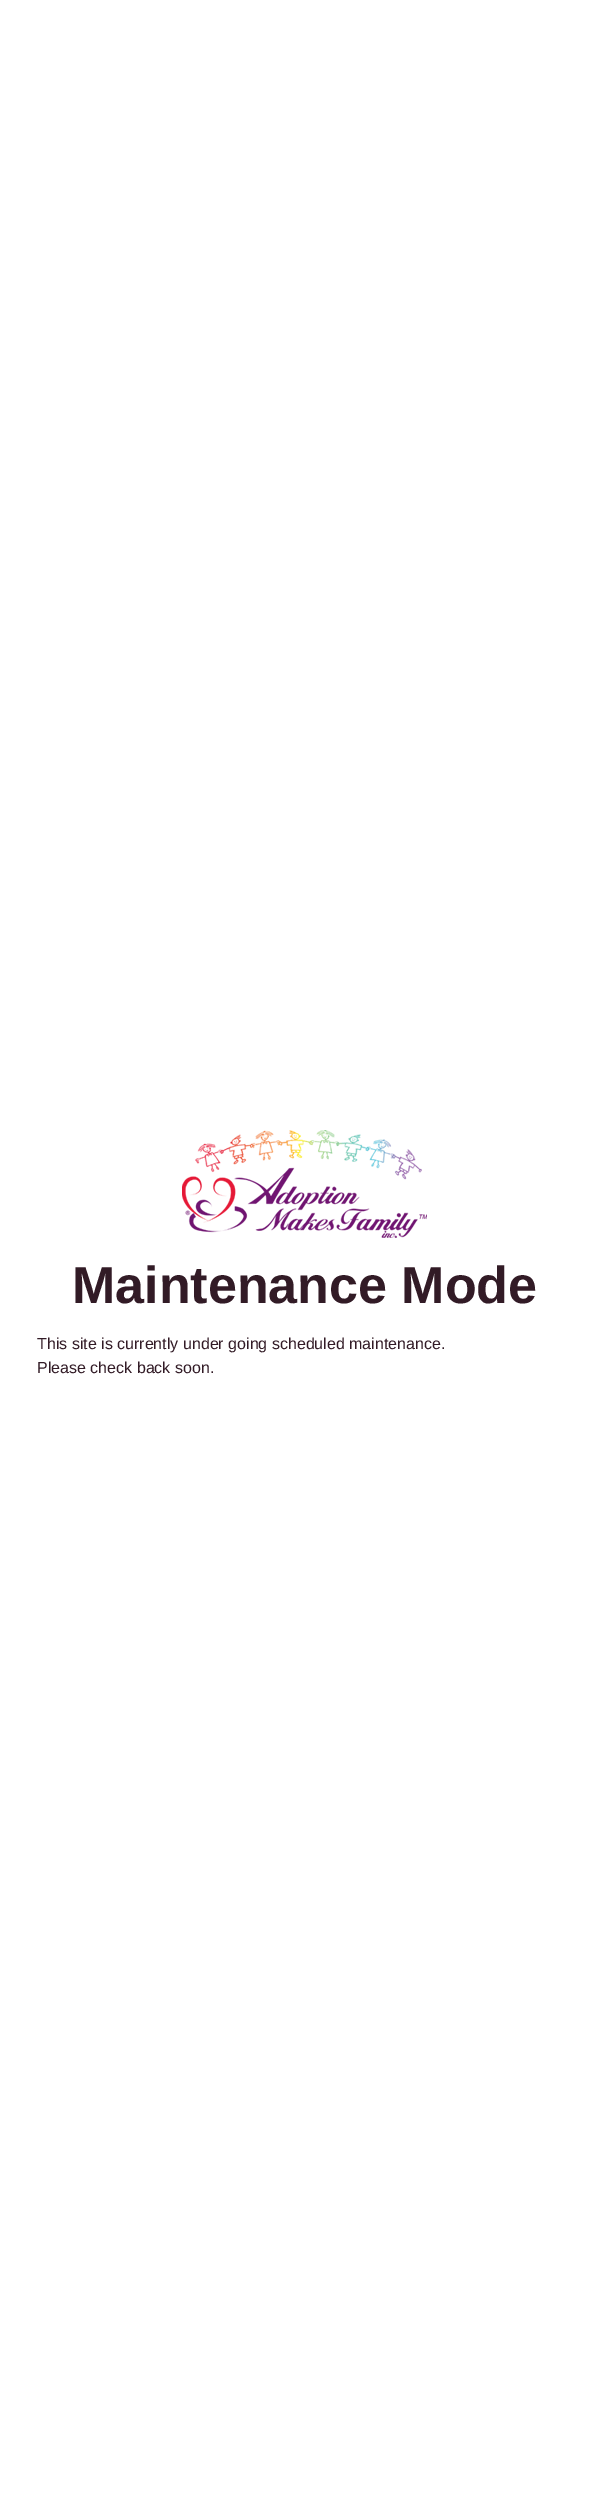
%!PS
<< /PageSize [609 2510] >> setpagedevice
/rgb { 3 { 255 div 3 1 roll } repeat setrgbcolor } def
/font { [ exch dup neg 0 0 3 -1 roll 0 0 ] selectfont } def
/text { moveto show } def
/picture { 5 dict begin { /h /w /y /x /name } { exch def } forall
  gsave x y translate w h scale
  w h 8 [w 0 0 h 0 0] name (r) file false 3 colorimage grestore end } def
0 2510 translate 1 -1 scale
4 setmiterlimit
255 255 255 rgb
0 0 609 2510 rectfill
(img_01.rgb) 182 1130 245 108 picture
/LiberationSans-Bold 52 font
50 27 38 rgb
(Maintenance Mode) 72 1303 text
/LiberationSans-Regular 16 font
(This site is currently under going scheduled maintenance.) 37 1349 text
(Please check back soon.) 37 1373 text
showpage
